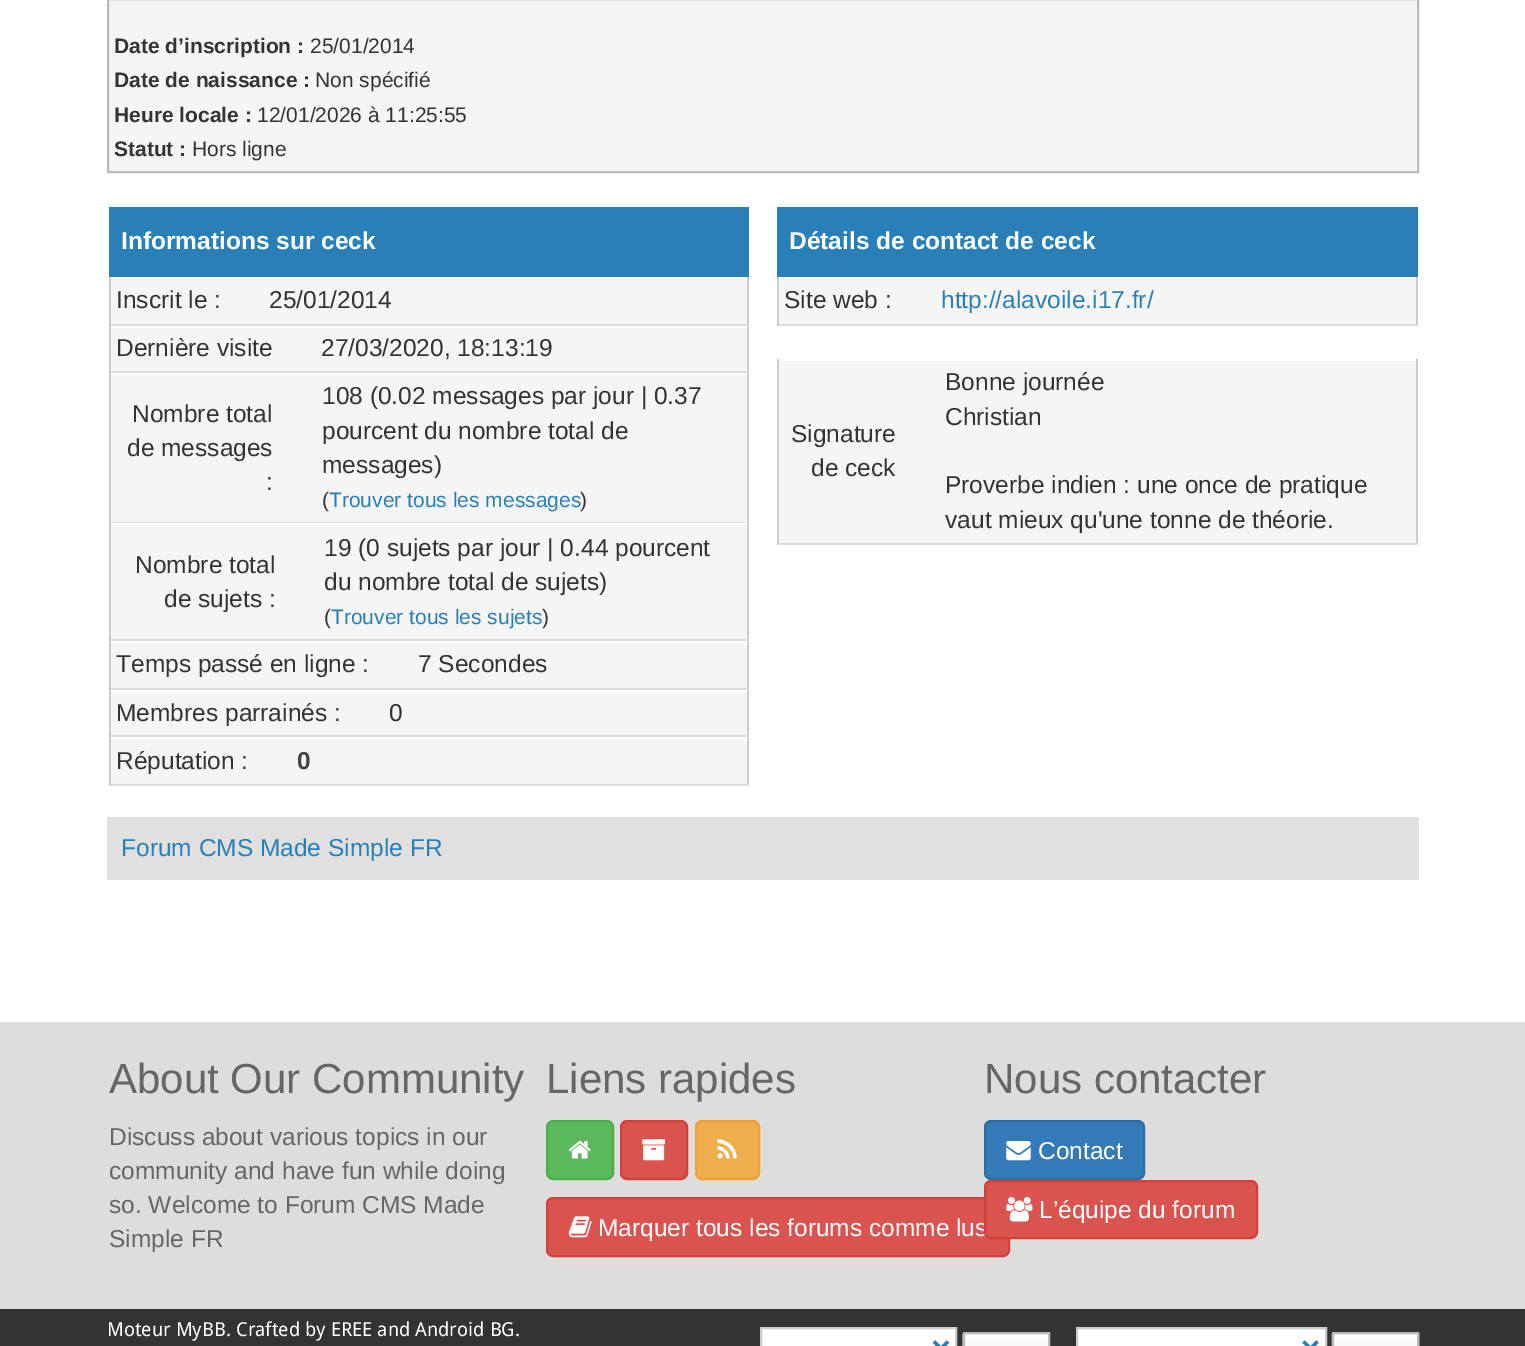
%!PS
<< /PageSize [1525 1346] >> setpagedevice
/rgb { 3 { 255 div 3 1 roll } repeat setrgbcolor } def
/font { [ exch dup neg 0 0 3 -1 roll 0 0 ] selectfont } def
/text { moveto show } def
/roundrect { 5 dict begin { /r /h /w /y /x } { exch def } forall
  x r add y moveto x w add y 2 copy h add r arct x w add y h add x 1 index r arct
  x y h add x y r arct x y 2 copy exch w add exch r arct closepath end } def
/picture { 5 dict begin { /h /w /y /x /name } { exch def } forall
  gsave x y translate w h scale
  w h 8 [w 0 0 h 0 0] name (r) file false 3 colorimage grestore end } def
0 1346 translate 1 -1 scale
4 setmiterlimit
255 255 255 rgb
0 0 1525 1346 rectfill
245 245 245 rgb
108 -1 moveto 1310 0 rlineto 0 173 rlineto -1310 0 rlineto closepath gsave fill grestore
187 187 187 rgb
2 setlinewidth
stroke
41 128 185 rgb
109 207 640 70 rectfill
245 245 245 rgb
111 279 636 45 rectfill
204 204 204 rgb
747 277 2 509 rectfill
221 221 221 rgb
109 324 640 2 rectfill
204 204 204 rgb
109 277 2 49 rectfill
245 245 245 rgb
111 328 636 43 rectfill
221 221 221 rgb
109 371 640 2 rectfill
204 204 204 rgb
109 326 2 47 rectfill
245 245 245 rgb
111 375 636 147 rectfill
221 221 221 rgb
109 522 640 1 rectfill
204 204 204 rgb
109 373 2 150 rectfill
245 245 245 rgb
111 525 636 114 rectfill
221 221 221 rgb
109 639 640 2 rectfill
204 204 204 rgb
109 523 2 118 rectfill
245 245 245 rgb
111 643 636 45 rectfill
221 221 221 rgb
109 688 640 2 rectfill
204 204 204 rgb
109 641 2 49 rectfill
245 245 245 rgb
111 692 636 43 rectfill
221 221 221 rgb
109 735 640 2 rectfill
204 204 204 rgb
109 690 2 47 rectfill
245 245 245 rgb
111 739 636 45 rectfill
221 221 221 rgb
109 784 640 2 rectfill
204 204 204 rgb
109 737 2 49 rectfill
41 128 185 rgb
777 207 641 70 rectfill
245 245 245 rgb
779 279 637 45 rectfill
204 204 204 rgb
1416 277 2 49 rectfill
221 221 221 rgb
777 324 641 2 rectfill
204 204 204 rgb
777 277 2 49 rectfill
245 245 245 rgb
779 361 637 182 rectfill
204 204 204 rgb
1416 359 2 185 rectfill
221 221 221 rgb
777 543 641 2 rectfill
204 204 204 rgb
777 359 2 185 rectfill
224 224 224 rgb
107 817 1312 63 rectfill
221 221 221 rgb
0 1022 1525 287 rectfill
92 184 92 rgb
547 1121 66 58 6 roundrect gsave fill grestore
76 174 76 rgb
stroke
(img_01.rgb) 568 1141 23 18 picture
217 83 79 rgb
621 1121 66 58 6 roundrect gsave fill grestore
212 63 58 rgb
stroke
(img_02.rgb) 642 1139 23 22 picture
240 173 78 rgb
696 1121 63 58 6 roundrect gsave fill grestore
238 162 54 rgb
stroke
(img_03.rgb) 717 1139 20 20 picture
217 83 79 rgb
547 1198 462 58 6 roundrect gsave fill grestore
212 63 58 rgb
stroke
(img_04.rgb) 568 1216 24 22 picture
51 122 183 rgb
985 1121 159 58 6 roundrect gsave fill grestore
46 109 164 rgb
stroke
(img_05.rgb) 1006 1141 25 20 picture
51 51 51 rgb
0 1309 1525 37 rectfill
255 255 255 rgb
761 1328 moveto 195 0 rlineto 0 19 rlineto -195 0 rlineto closepath gsave fill grestore
204 204 204 rgb
stroke
41 128 185 rgb
3.5 setlinewidth
934 1341.5 moveto 7 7 rlineto 7 -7 rlineto stroke
(img_07.rgb) 962 1333 86 13 picture
187 187 187 rgb
2 setlinewidth
964 1333 85 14 rectstroke
255 255 255 rgb
1077 1328 moveto 249 0 rlineto 0 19 rlineto -249 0 rlineto closepath gsave fill grestore
204 204 204 rgb
stroke
41 128 185 rgb
3.5 setlinewidth
1303.5 1341.5 moveto 7 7 rlineto 7 -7 rlineto stroke
(img_08.rgb) 1331 1333 89 13 picture
187 187 187 rgb
2 setlinewidth
1333 1333 85 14 rectstroke
/LiberationSans-Bold 21 font
51 51 51 rgb
(Date d’inscription :) 114 53 text
/LiberationSans-Regular 21 font
(25/01/2014) 310 53 text
/LiberationSans-Bold 21 font
(Date de naissance :) 114 87 text
/LiberationSans-Regular 21 font
(Non spécifié) 315 87 text
/LiberationSans-Bold 21 font
(Heure locale :) 114 122 text
/LiberationSans-Regular 21 font
(12/01/2026 à 11:25:55) 257 122 text
/LiberationSans-Bold 21 font
(Statut :) 114 156 text
/LiberationSans-Regular 21 font
(Hors ligne) 192 156 text
/LiberationSans-Bold 24.5 font
255 255 255 rgb
(Informations sur ceck) 121 249 text
/LiberationSans-Regular 24.5 font
51 51 51 rgb
(Inscrit le :) 116 308 text
(25/01/2014) 269 308 text
(Dernière visite) 116 356 text
(27/03/2020, 18:13:19) 321 356 text
(Nombre total) 132 422 text
(de messages) 127 456 text
(:) 266 490 text
(108 \(0.02 messages par jour | 0.37) 322 404 text
(pourcent du nombre total de) 322 439 text
(messages\)) 322 473 text
/LiberationSans-Regular 21 font
(\() 322 507 text
41 128 185 rgb
(Trouver tous les messages) 329 507 text
51 51 51 rgb
(\)) 580 507 text
/LiberationSans-Regular 24.5 font
(Nombre total) 135 573 text
(de sujets :) 164 607 text
(19 \(0 sujets par jour | 0.44 pourcent) 324 556 text
(du nombre total de sujets\)) 324 590 text
/LiberationSans-Regular 21 font
(\() 324 624 text
41 128 185 rgb
(Trouver tous les sujets) 331 624 text
51 51 51 rgb
(\)) 542 624 text
/LiberationSans-Regular 24.5 font
(Temps passé en ligne :) 116 672 text
(7 Secondes) 418 672 text
(Membres parrainés :) 116 721 text
(0) 389 721 text
(Réputation :) 116 769 text
/LiberationSans-Bold 24.5 font
68 68 68 rgb
(0) 297 769 text
255 255 255 rgb
(Détails de contact de ceck) 789 249 text
/LiberationSans-Regular 24.5 font
51 51 51 rgb
(Site web :) 784 308 text
41 128 185 rgb
(http://alavoile.i17.fr/) 941 308 text
51 51 51 rgb
(Signature) 791 442 text
(de ceck) 811 476 text
(Bonne journée) 945 390 text
(Christian) 945 425 text
(Proverbe indien : une once de pratique) 945 493 text
(vaut mieux qu'une tonne de théorie.) 945 528 text
41 128 185 rgb
(Forum CMS Made Simple FR) 121 856 text
/LiberationSans-Regular 42 font
102 102 102 rgb
(About Our Community) 109 1093 text
/LiberationSans-Regular 24.5 font
(Discuss about various topics in our) 109 1145 text
(community and have fun while doing) 109 1179 text
(so. Welcome to Forum CMS Made) 109 1213 text
(Simple FR) 109 1247 text
/LiberationSans-Regular 42 font
(Liens rapides) 546 1093 text
/LiberationSans-Regular 24.5 font
255 255 255 rgb
(Marquer tous les forums comme lus) 598 1236 text
/LiberationSans-Regular 42 font
102 102 102 rgb
(Nous contacter) 984 1093 text
/LiberationSans-Regular 24.5 font
255 255 255 rgb
(Contact) 1038 1159 text
217 83 79 rgb
985 1181 272 57 6 roundrect gsave fill grestore
212 63 58 rgb
stroke
(img_06.rgb) 1006 1197 27 25 picture
255 255 255 rgb
(L’équipe du forum) 1039 1218 text
/DroidSans-Regular 19.25 font
(Moteur MyBB. Crafted by EREE and Android BG.) 107 1336 text
showpage
